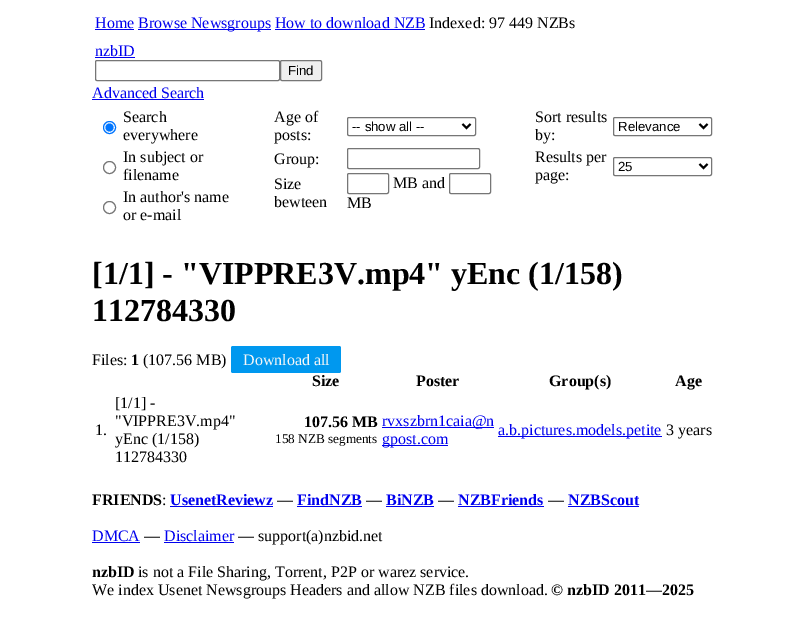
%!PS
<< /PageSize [810 621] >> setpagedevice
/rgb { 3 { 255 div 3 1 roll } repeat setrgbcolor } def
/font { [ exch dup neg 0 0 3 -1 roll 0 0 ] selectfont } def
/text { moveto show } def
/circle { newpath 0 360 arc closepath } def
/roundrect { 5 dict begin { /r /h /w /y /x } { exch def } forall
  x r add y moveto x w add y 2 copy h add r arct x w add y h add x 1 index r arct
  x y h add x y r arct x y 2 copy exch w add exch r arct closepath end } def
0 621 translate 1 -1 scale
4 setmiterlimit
255 255 255 rgb
0 0 810 621 rectfill
0 0 238 rgb
95 29 39 1 rectfill
138 29 133 1 rectfill
275 29 150 1 rectfill
95 57 40 1 rectfill
118 118 118 rgb
95.5 60.5 184 20 1.5 roundrect stroke
239 239 239 rgb
280.5 60.5 41 20 1.5 roundrect gsave fill grestore
118 118 118 rgb
stroke
0 0 238 rgb
92 99 112 1 rectfill
0 117 255 rgb
109.5 127.5 6 circle stroke
109.5 127.5 4 circle fill
118 118 118 rgb
109.5 167.5 6 circle stroke
109.5 207.5 6 circle stroke
347.5 117.5 128 18 1.5 roundrect stroke
0 0 0 rgb
2 setlinewidth
462.5 124 moveto 4 4 rlineto 4 -4 rlineto stroke
118 118 118 rgb
1 setlinewidth
347.5 148.5 132 20 1.5 roundrect stroke
347.5 173.5 41 20 1.5 roundrect stroke
449.5 173.5 41 20 1.5 roundrect stroke
613.5 117.5 98 18 1.5 roundrect stroke
0 0 0 rgb
2 setlinewidth
699.5 124 moveto 4 4 rlineto 4 -4 rlineto stroke
118 118 118 rgb
1 setlinewidth
613.5 157.5 98 18 1.5 roundrect stroke
0 0 0 rgb
2 setlinewidth
699.5 164 moveto 4 4 rlineto 4 -4 rlineto stroke
0 152 239 rgb
231 346 110 27 2 roundrect fill
0 0 238 rgb
382 427 112 1 rectfill
382 445 66 1 rectfill
498 436 164 1 rectfill
170 506 103 1 rectfill
297 506 65 1 rectfill
386 506 48 1 rectfill
458 506 86 1 rectfill
568 506 71 1 rectfill
92 542 48 1 rectfill
164 542 70 1 rectfill
/LiberationSerif-Regular 16 font
(Home) 95 28 text
(Browse Newsgroups How to download NZB) 138 28 text
0 0 0 rgb
(Indexed: 97 449 NZBs) 429 28 text
0 0 238 rgb
(nzbID) 95 56 text
/LiberationSans-Regular 13.25 font
0 0 0 rgb
(Find) 288 75 text
/LiberationSerif-Regular 16 font
0 0 238 rgb
(Advanced Search) 92 98 text
0 0 0 rgb
(Search) 123 122 text
(everywhere) 123 140 text
(In subject or) 123 162 text
(filename) 123 180 text
(In author's name) 123 202 text
(or e-mail) 123 220 text
(Age of) 274 122 text
(posts:) 274 140 text
/LiberationSans-Regular 13.25 font
(-- show all --) 352 131 text
/LiberationSerif-Regular 16 font
(Group:) 274 164 text
(Size) 274 189 text
(bewteen) 274 207 text
(MB and) 393 188 text
(MB) 347 208 text
(Sort results) 535 122 text
(by:) 535 140 text
/LiberationSans-Regular 13.25 font
(Relevance) 618 131 text
/LiberationSerif-Regular 16 font
(Results per) 535 162 text
(page:) 535 180 text
/LiberationSans-Regular 13.25 font
(25) 618 171 text
/LiberationSerif-Bold 32 font
([1/1] - "VIPPRE3V.mp4" yEnc \(1/158\)) 92 284 text
(112784330) 92 321 text
/LiberationSerif-Regular 16 font
(Files:) 92 365 text
/LiberationSerif-Bold 16 font
(1) 131 365 text
/LiberationSerif-Regular 16 font
(\(107.56 MB\)) 143 365 text
247 247 247 rgb
(Download all) 243 365 text
/LiberationSerif-Bold 16 font
0 0 0 rgb
(Size) 312 386 text
(Poster) 416 386 text
(Group\(s\)) 549 386 text
(Age) 675 386 text
/LiberationSerif-Regular 16 font
(1.) 95 435 text
([1/1] -) 115 408 text
("VIPPRE3V.mp4") 115 426 text
(yEnc \(1/158\)) 115 444 text
(112784330) 115 462 text
/LiberationSerif-Bold 16 font
(107.56 MB) 304 427 text
/LiberationSerif-Regular 13.25 font
(158 NZB segments) 275 443 text
/LiberationSerif-Regular 16 font
0 0 238 rgb
(rvxszbrn1caia@n) 382 426 text
(gpost.com) 382 444 text
(a.b.pictures.models.petite) 498 435 text
0 0 0 rgb
(3 years) 666 435 text
/LiberationSerif-Bold 16 font
(FRIENDS) 92 505 text
/LiberationSerif-Regular 16 font
(:) 162 505 text
/LiberationSerif-Bold 16 font
0 0 238 rgb
(UsenetReviewz) 170 505 text
/LiberationSerif-Regular 16 font
0 0 0 rgb
(—) 277 505 text
/LiberationSerif-Bold 16 font
0 0 238 rgb
(FindNZB) 297 505 text
/LiberationSerif-Regular 16 font
0 0 0 rgb
(—) 366 505 text
/LiberationSerif-Bold 16 font
0 0 238 rgb
(BiNZB) 386 505 text
/LiberationSerif-Regular 16 font
0 0 0 rgb
(—) 438 505 text
/LiberationSerif-Bold 16 font
0 0 238 rgb
(NZBFriends) 458 505 text
/LiberationSerif-Regular 16 font
0 0 0 rgb
(—) 548 505 text
/LiberationSerif-Bold 16 font
0 0 238 rgb
(NZBScout) 568 505 text
/LiberationSerif-Regular 16 font
(DMCA) 92 541 text
0 0 0 rgb
(—) 144 541 text
0 0 238 rgb
(Disclaimer) 164 541 text
0 0 0 rgb
(— support\(a\)nzbid.net) 238 541 text
/LiberationSerif-Bold 16 font
(nzbID) 92 577 text
/LiberationSerif-Regular 16 font
(is not a File Sharing, Torrent, P2P or warez service.) 138 577 text
(We index Usenet Newsgroups Headers and allow NZB files download.) 92 595 text
/LiberationSerif-Bold 16 font
(© nzbID 2011—2025) 551 595 text
showpage
